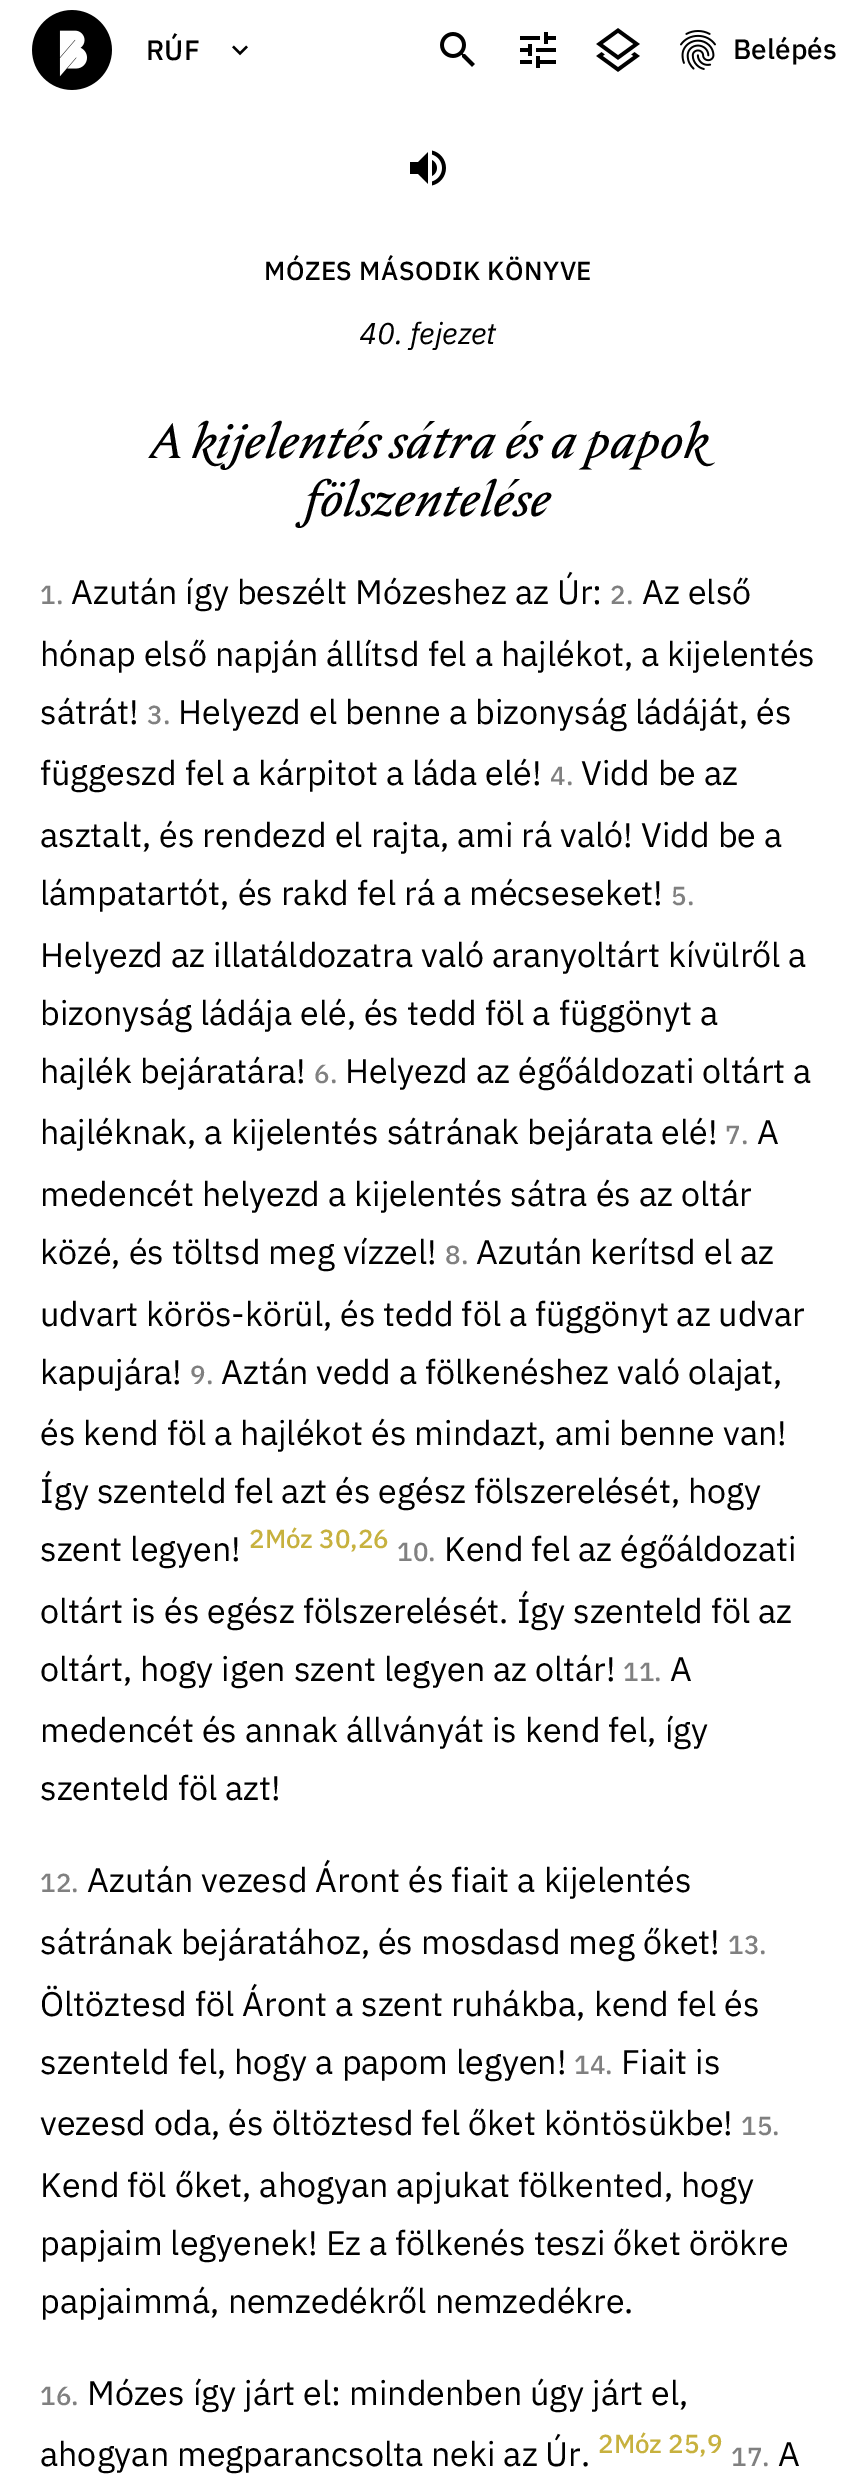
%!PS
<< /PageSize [856 2474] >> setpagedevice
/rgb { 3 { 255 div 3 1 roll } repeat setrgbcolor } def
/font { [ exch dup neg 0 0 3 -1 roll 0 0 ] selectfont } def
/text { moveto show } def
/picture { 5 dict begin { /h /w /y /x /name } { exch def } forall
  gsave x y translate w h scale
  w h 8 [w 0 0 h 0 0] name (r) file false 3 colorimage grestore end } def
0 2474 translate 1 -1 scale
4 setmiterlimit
255 255 255 rgb
0 0 856 2474 rectfill
(img_01.rgb) 32 10 80 80 picture
(img_02.rgb) 232 45 16 11 picture
(img_03.rgb) 440 32 35 35 picture
(img_04.rgb) 520 32 36 36 picture
(img_05.rgb) 596 28 44 44 picture
(img_06.rgb) 680 30 36 40 picture
(img_07.rgb) 410 150 36 36 picture
/IBMPlexSans-Medium 28 font
0 0 0 rgb
(RÚF) 146 60 text
(Belépés) 733 59 text
/IBMPlexSans-Medium 26 font
264 280 moveto 0.5 0 (MÓZES MÁSODIK KÖNYVE) ashow
/IBMPlexSans-Italic 30 font
(40. fejezet) 359 344 text
/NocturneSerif-Italic 48 font
(A kijelentés sátra és a papok) 149 458 text
(fölszentelése) 305 516 text
/IBMPlexSans-Medium 26 font
128 128 128 rgb
(1.) 40 604 text
/IBMPlexSans-Regular 34 font
0 0 0 rgb
(Azután így beszélt Mózeshez az Úr:) 71 604 text
/IBMPlexSans-Medium 26 font
128 128 128 rgb
(2.) 610 604 text
/IBMPlexSans-Regular 34 font
0 0 0 rgb
(Az első) 642 604 text
(hónap első napján állítsd fel a hajlékot, a kijelentés) 40 666 text
(sátrát!) 40 724 text
/IBMPlexSans-Medium 26 font
128 128 128 rgb
(3.) 147 724 text
/IBMPlexSans-Regular 34 font
0 0 0 rgb
(Helyezd el benne a bizonyság ládáját, és) 178 724 text
(függeszd fel a kárpitot a láda elé!) 40 785 text
/IBMPlexSans-Medium 26 font
128 128 128 rgb
(4.) 550 785 text
/IBMPlexSans-Regular 34 font
0 0 0 rgb
(Vidd be az) 581 785 text
(asztalt, és rendezd el rajta, ami rá való! Vidd be a) 40 847 text
(lámpatartót, és rakd fel rá a mécseseket!) 40 905 text
/IBMPlexSans-Medium 26 font
128 128 128 rgb
(5.) 671 905 text
/IBMPlexSans-Regular 34 font
0 0 0 rgb
(Helyezd az illatáldozatra való aranyoltárt kívülről a) 40 967 text
(bizonyság ládája elé, és tedd föl a függönyt a) 40 1025 text
(hajlék bejáratára!) 40 1083 text
/IBMPlexSans-Medium 26 font
128 128 128 rgb
(6.) 314 1083 text
/IBMPlexSans-Regular 34 font
0 0 0 rgb
(Helyezd az égőáldozati oltárt a) 345 1083 text
(hajléknak, a kijelentés sátrának bejárata elé!) 40 1144 text
/IBMPlexSans-Medium 26 font
128 128 128 rgb
(7.) 725 1144 text
/IBMPlexSans-Regular 34 font
0 0 0 rgb
(A) 757 1144 text
(medencét helyezd a kijelentés sátra és az oltár) 40 1206 text
(közé, és töltsd meg vízzel!) 40 1264 text
/IBMPlexSans-Medium 26 font
128 128 128 rgb
(8.) 445 1264 text
/IBMPlexSans-Regular 34 font
0 0 0 rgb
(Azután kerítsd el az) 476 1264 text
(udvart körös-körül, és tedd föl a függönyt az udvar) 40 1326 text
/IBMPlexSans-Medium 26 font
128 128 128 rgb
(9.) 190 1384 text
/IBMPlexSans-Regular 34 font
0 0 0 rgb
(Aztán vedd a fölkenéshez való olajat,) 221 1384 text
(és kend föl a hajlékot és mindazt, ami benne van!) 40 1445 text
(Így szenteld fel azt és egész fölszerelését, hogy) 40 1503 text
(szent legyen!) 40 1561 text
/IBMPlexSans-Medium 26 font
199 177 62 rgb
(2Móz 30,26) 249 1548 text
/IBMPlexSans-Regular 34 font
0 0 0 rgb
(kapujára!) 40 1384 text
/IBMPlexSans-Medium 26 font
128 128 128 rgb
(10.) 397 1561 text
/IBMPlexSans-Regular 34 font
0 0 0 rgb
(Kend fel az égőáldozati) 444 1561 text
(oltárt is és egész fölszerelését. Így szenteld föl az) 40 1623 text
(oltárt, hogy igen szent legyen az oltár!) 40 1681 text
/IBMPlexSans-Medium 26 font
128 128 128 rgb
(11.) 623 1681 text
/IBMPlexSans-Regular 34 font
0 0 0 rgb
(A) 670 1681 text
(medencét és annak állványát is kend fel, így) 40 1742 text
(szenteld föl azt!) 40 1800 text
/IBMPlexSans-Medium 26 font
128 128 128 rgb
(12.) 40 1892 text
/IBMPlexSans-Regular 34 font
0 0 0 rgb
(Azután vezesd Áront és fiait a kijelentés) 87 1892 text
(sátrának bejáratához, és mosdasd meg őket!) 40 1954 text
/IBMPlexSans-Medium 26 font
128 128 128 rgb
(13.) 728 1954 text
/IBMPlexSans-Regular 34 font
0 0 0 rgb
(Öltöztesd föl Áront a szent ruhákba, kend fel és) 40 2016 text
(szenteld fel, hogy a papom legyen!) 40 2074 text
/IBMPlexSans-Medium 26 font
128 128 128 rgb
(14.) 574 2074 text
/IBMPlexSans-Regular 34 font
0 0 0 rgb
(Fiait is) 621 2074 text
(vezesd oda, és öltöztesd fel őket köntösükbe!) 40 2135 text
/IBMPlexSans-Medium 26 font
128 128 128 rgb
(15.) 741 2135 text
/IBMPlexSans-Regular 34 font
0 0 0 rgb
(Kend föl őket, ahogyan apjukat fölkented, hogy) 40 2197 text
(papjaim legyenek! Ez a fölkenés teszi őket örökre) 40 2255 text
(papjaimmá, nemzedékről nemzedékre.) 40 2313 text
/IBMPlexSans-Medium 26 font
128 128 128 rgb
(16.) 40 2405 text
/IBMPlexSans-Regular 34 font
0 0 0 rgb
(Mózes így járt el: mindenben úgy járt el,) 87 2405 text
(ahogyan megparancsolta neki az Úr.) 40 2466 text
/IBMPlexSans-Medium 26 font
199 177 62 rgb
(2Móz 25,9) 598 2453 text
128 128 128 rgb
(17.) 731 2466 text
/IBMPlexSans-Regular 34 font
0 0 0 rgb
(A) 778 2466 text
showpage
